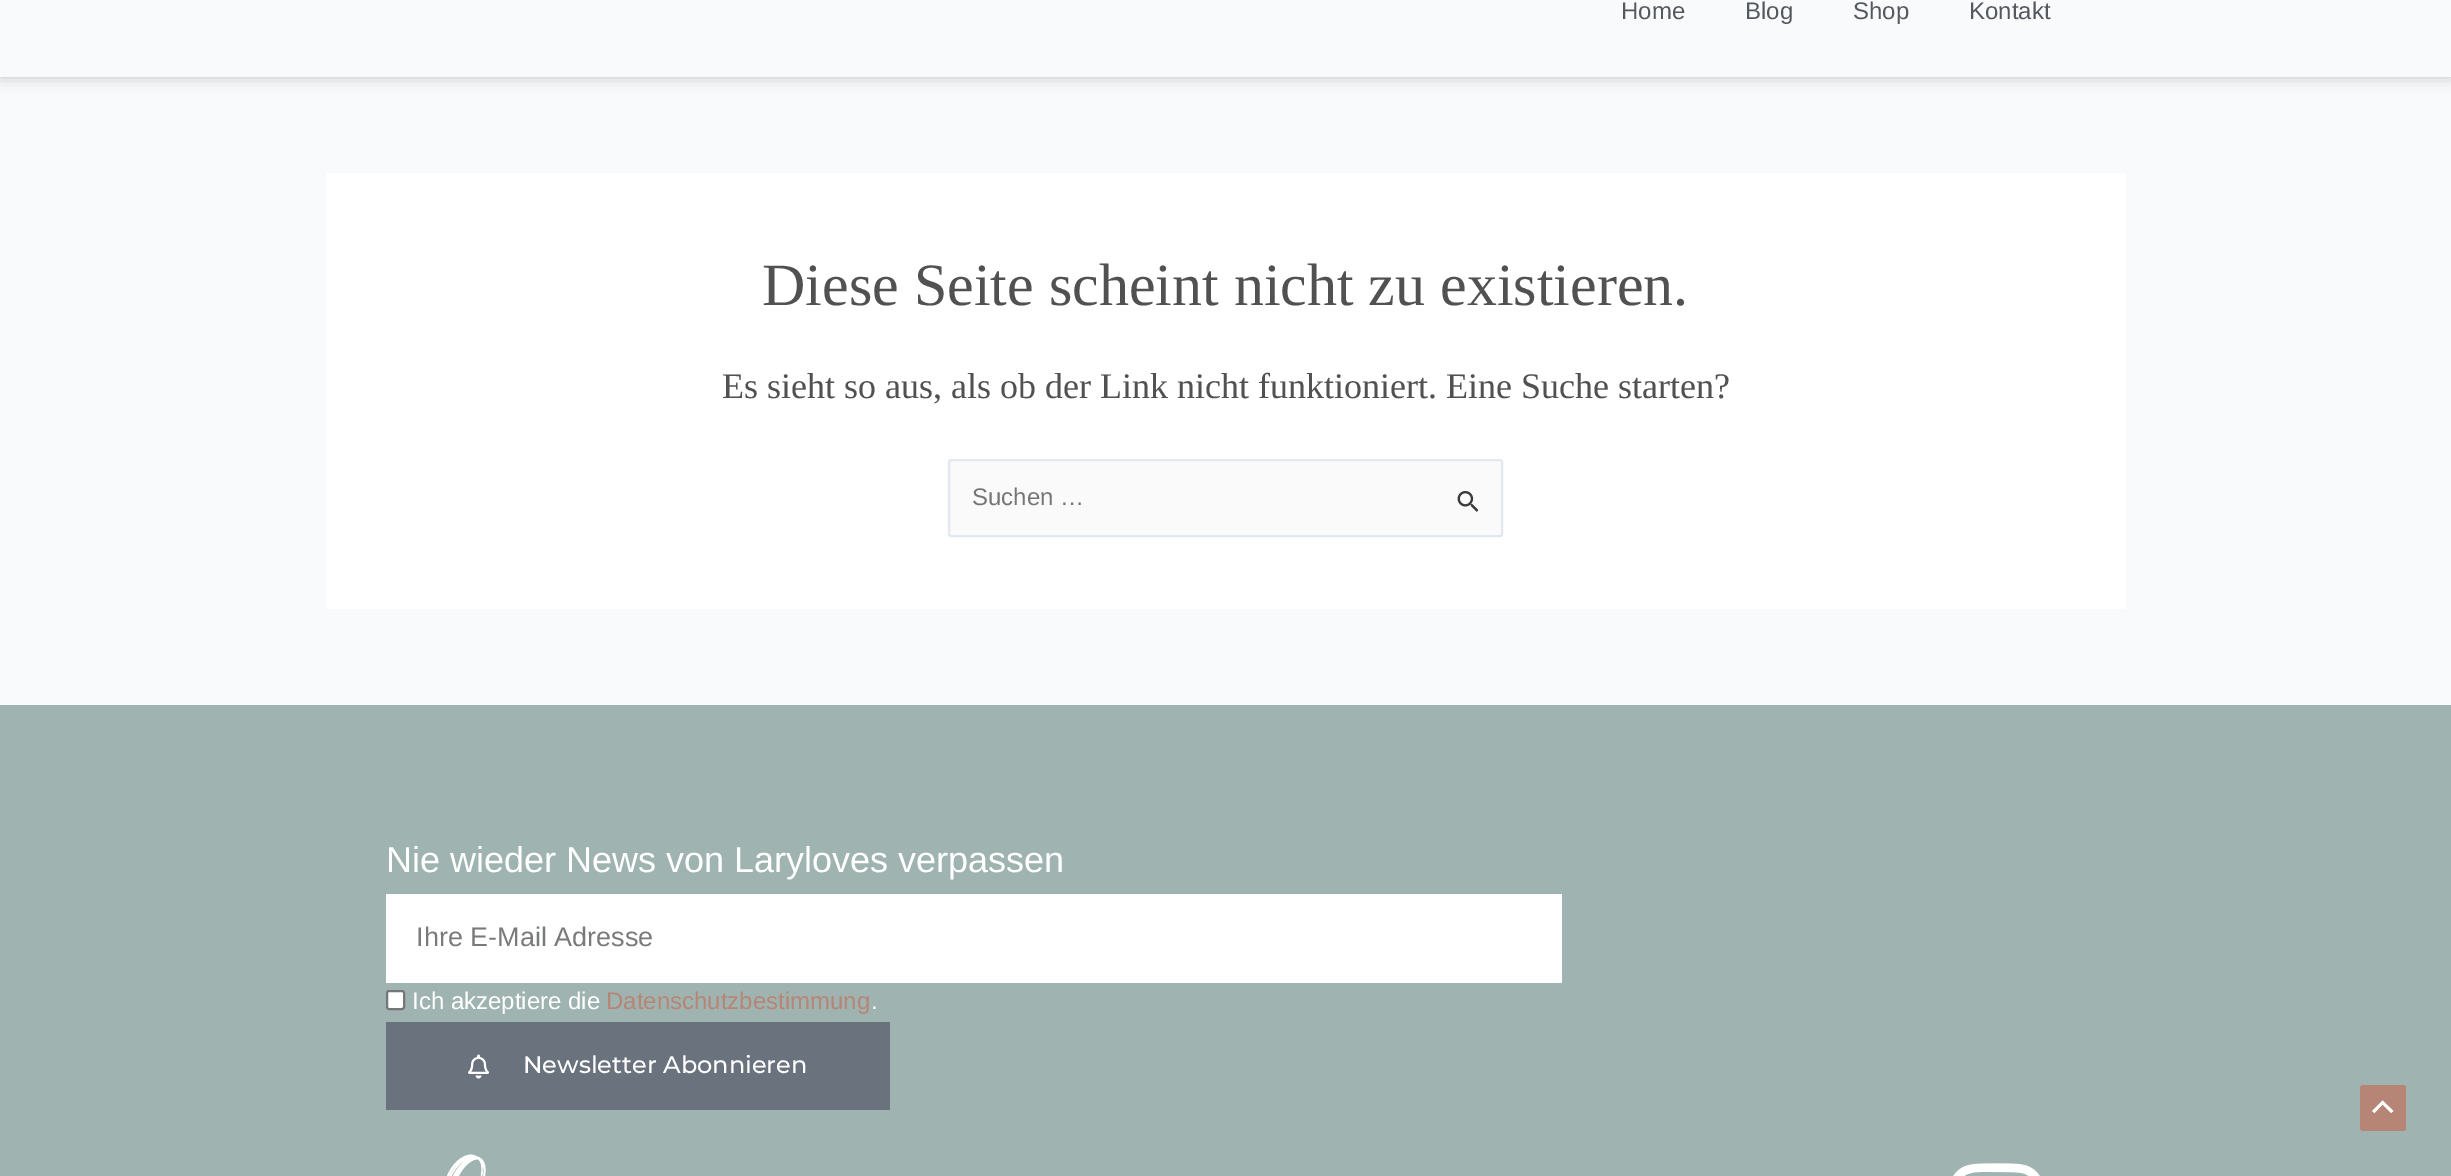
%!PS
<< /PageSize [2451 1176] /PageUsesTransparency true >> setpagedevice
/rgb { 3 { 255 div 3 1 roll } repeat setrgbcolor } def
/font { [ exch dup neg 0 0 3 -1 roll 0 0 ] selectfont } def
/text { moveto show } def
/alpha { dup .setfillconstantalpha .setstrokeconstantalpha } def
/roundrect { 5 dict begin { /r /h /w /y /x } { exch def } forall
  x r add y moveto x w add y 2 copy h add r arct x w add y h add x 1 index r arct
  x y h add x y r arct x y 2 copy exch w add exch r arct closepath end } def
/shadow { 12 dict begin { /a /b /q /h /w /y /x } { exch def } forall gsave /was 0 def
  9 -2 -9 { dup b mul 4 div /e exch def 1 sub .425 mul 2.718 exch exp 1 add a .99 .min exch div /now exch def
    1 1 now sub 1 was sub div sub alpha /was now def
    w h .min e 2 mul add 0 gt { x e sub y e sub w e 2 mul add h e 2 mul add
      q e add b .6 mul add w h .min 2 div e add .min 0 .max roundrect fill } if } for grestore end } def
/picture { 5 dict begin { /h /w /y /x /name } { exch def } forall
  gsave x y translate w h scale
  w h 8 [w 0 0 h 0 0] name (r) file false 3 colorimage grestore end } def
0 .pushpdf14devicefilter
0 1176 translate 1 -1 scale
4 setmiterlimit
249 250 251 rgb
0 0 2451 1176 rectfill
gsave
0 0 moveto 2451 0 rlineto 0 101 rlineto -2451 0 rlineto closepath 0 -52 moveto 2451 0 rlineto 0 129 rlineto -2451 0 rlineto closepath eoclip newpath
0 0 0 rgb
0 -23 2451 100 0 7.5 0.22 shadow
grestore
255 255 255 rgb
326 173 1800 436 rectfill
250 250 250 rgb
949 460 553 76 2 roundrect gsave fill grestore
226 232 240 rgb
2 setlinewidth
stroke
(img_01.rgb) 1457 491 21 21 picture
159 179 176 rgb
0 705 2451 471 rectfill
255 255 255 rgb
386 894 1176 89 rectfill
387 991 17 18 2 roundrect gsave fill grestore
118 118 118 rgb
stroke
105 114 125 rgb
386 1022 504 88 rectfill
(img_02.rgb) 468 1054 21 25 picture
(img_03.rgb) 447 1154 39 22 picture
(img_04.rgb) 1953 1163 87 13 picture
183 133 118 rgb
2360 1085 46 46 3 roundrect fill
255 255 255 rgb
2393.5 1111 moveto -11 -10.5 rlineto -10.5 10.5 rlineto 2.5 2 rlineto 8 -8.5 rlineto 8.5 8.5 rlineto closepath fill
/LiberationSans-Regular 24 font
84 89 95 rgb
(Home) 1621 19 text
(Blog) 1745 19 text
(Shop) 1853 19 text
(Kontakt) 1969 19 text
/LiberationSerif-Regular 60 font
81 81 81 rgb
(Diese Seite scheint nicht zu existieren.) 762 305 text
/LiberationSerif-Regular 36 font
(Es sieht so aus, als ob der Link nicht funktioniert. Eine Suche starten?) 722 398 text
/LiberationSans-Regular 24 font
117 117 117 rgb
(Suchen …) 972 505 text
/LiberationSans-Regular 36 font
255 255 255 rgb
(Nie wieder News von Laryloves verpassen) 386 872 text
/LiberationSans-Regular 27 font
121 122 124 rgb
(Ihre E-Mail Adresse) 416 946 text
/LiberationSans-Regular 24 font
255 255 255 rgb
(Ich akzeptiere die) 412 1009 text
183 133 118 rgb
(Datenschutzbestimmung) 606 1009 text
255 255 255 rgb
(.) 871 1009 text
/Montserrat-Medium 24 font
(Newsletter Abonnieren) 523 1073 text
.poppdf14devicefilter showpage
